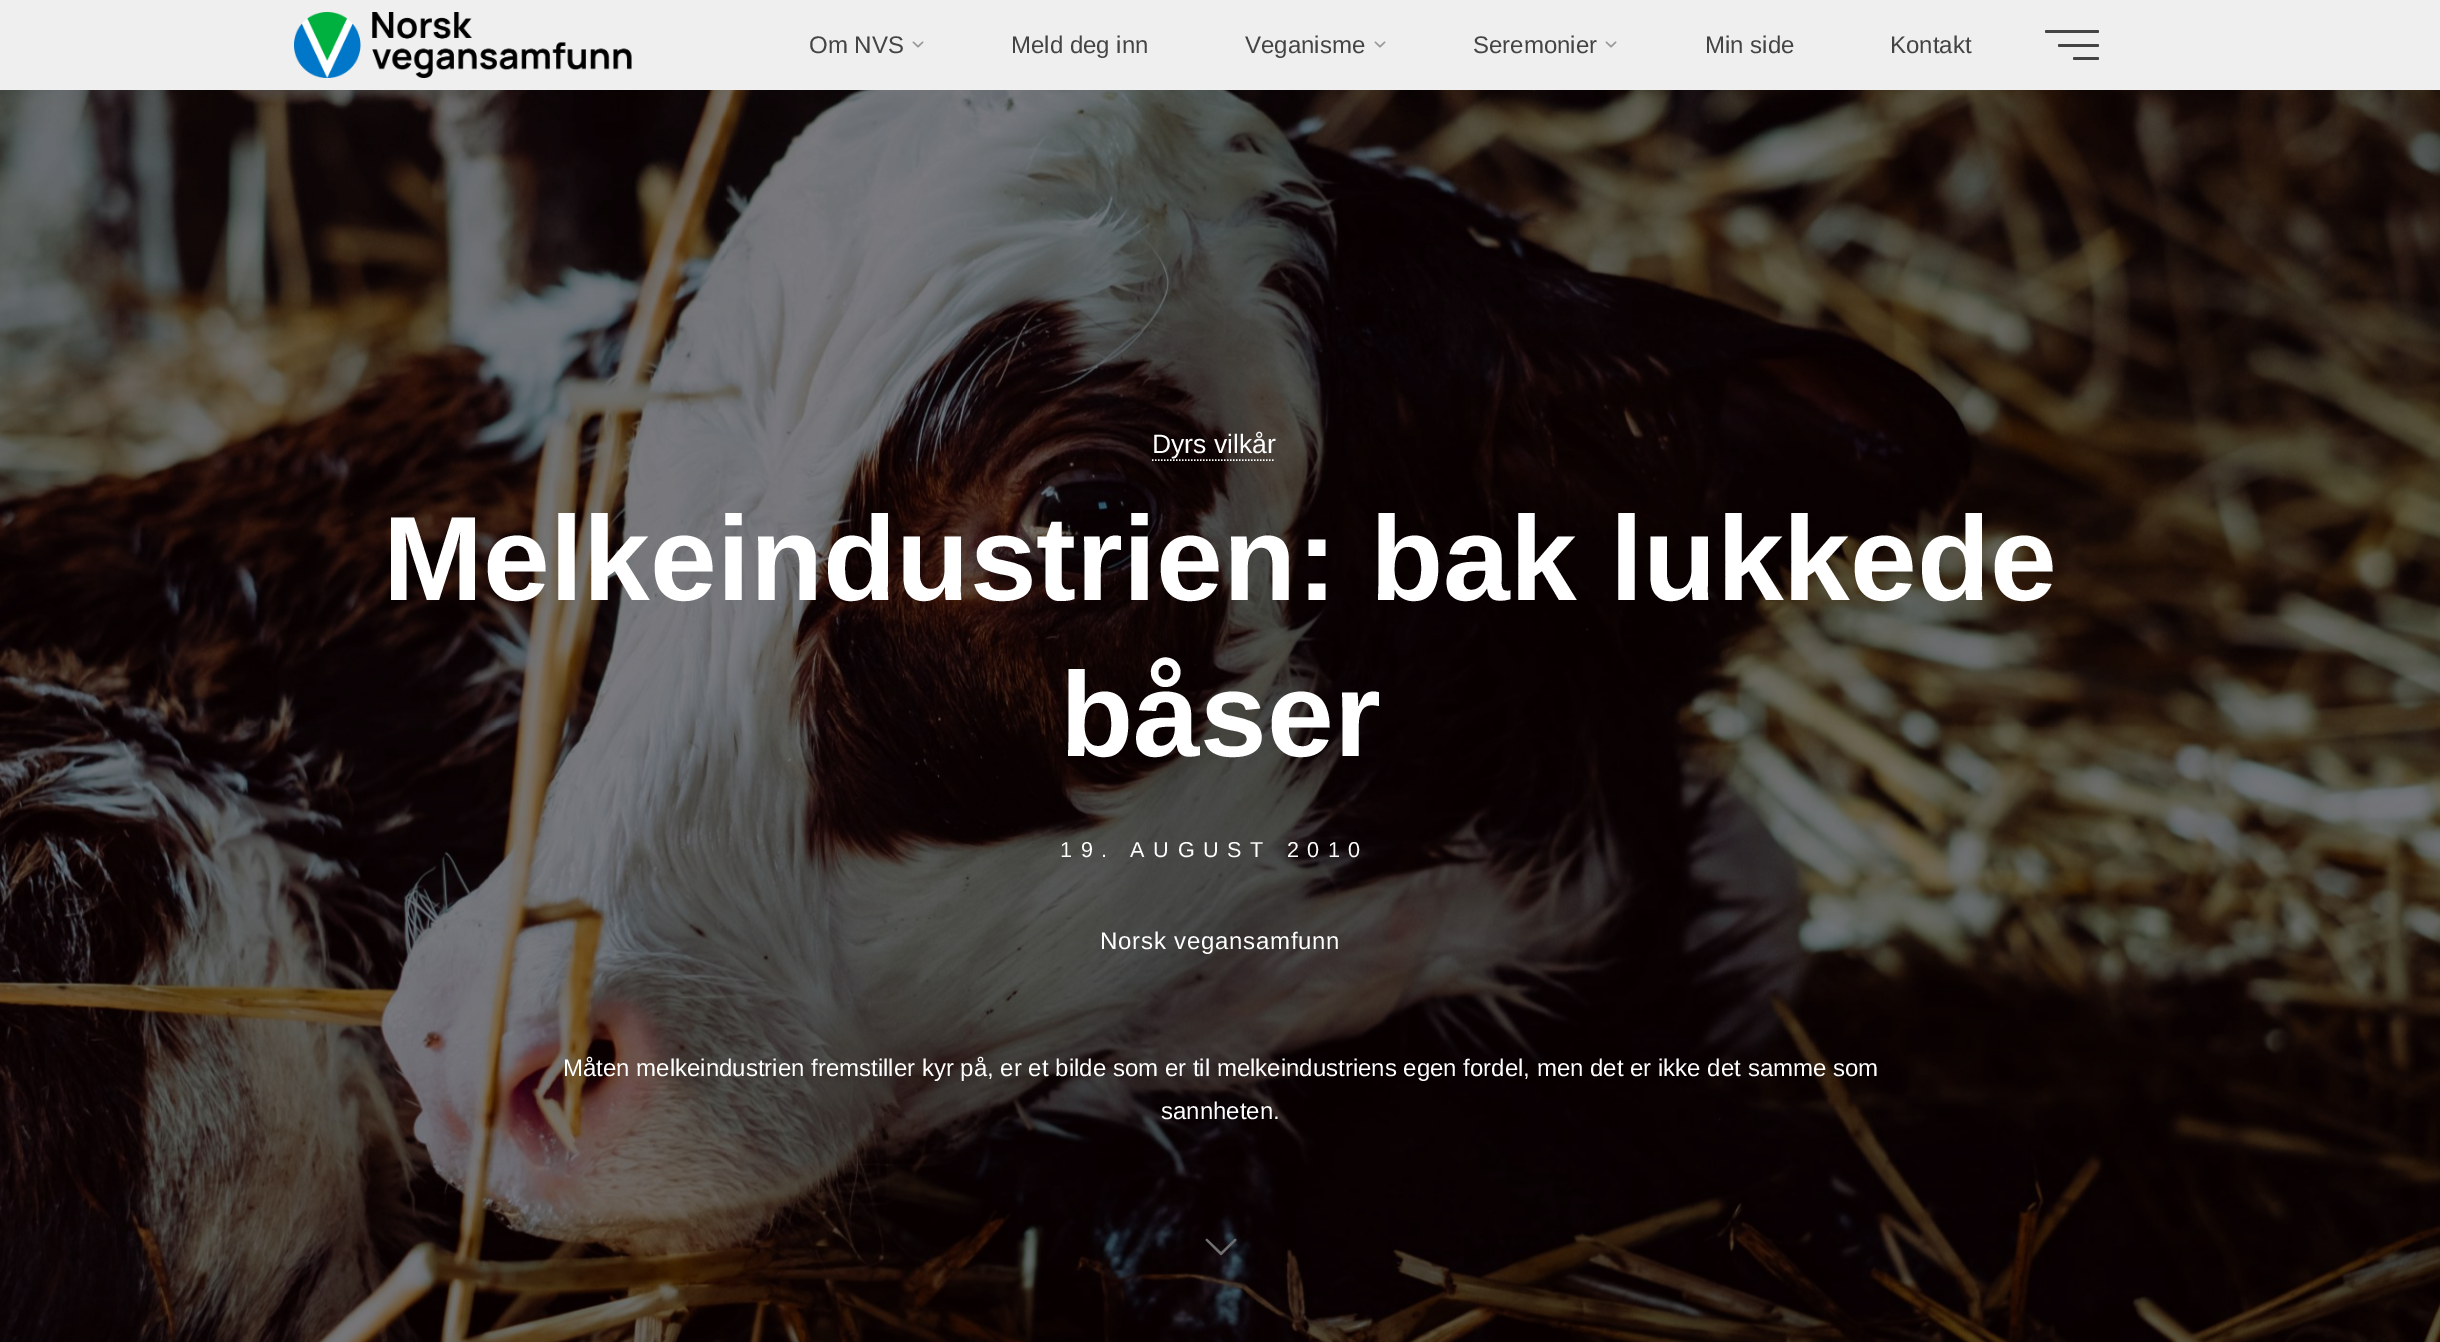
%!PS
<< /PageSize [2440 1342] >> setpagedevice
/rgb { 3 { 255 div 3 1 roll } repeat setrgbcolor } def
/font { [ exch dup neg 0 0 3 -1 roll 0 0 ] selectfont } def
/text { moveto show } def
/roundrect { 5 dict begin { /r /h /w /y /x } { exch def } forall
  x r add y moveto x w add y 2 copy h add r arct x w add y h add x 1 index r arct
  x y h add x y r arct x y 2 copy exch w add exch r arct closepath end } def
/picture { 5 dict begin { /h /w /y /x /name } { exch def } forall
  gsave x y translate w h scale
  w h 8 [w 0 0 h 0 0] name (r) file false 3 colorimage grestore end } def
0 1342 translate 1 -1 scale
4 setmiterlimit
255 255 255 rgb
0 0 2440 1342 rectfill
239 239 239 rgb
0 0 2440 90 rectfill
(img_01.rgb) 294 12 338 66 picture
(img_02.rgb) 912 41 12 7 picture
(img_02.rgb) 1374 41 12 7 picture
(img_02.rgb) 1605 41 12 7 picture
68 68 68 rgb
2045 30 54 3 1.5 roundrect fill
2058 44 41 3 1.5 roundrect fill
2073 57 26 3 1.5 roundrect fill
(img_03.rgb) 0 90 2440 1252 picture
255 255 255 rgb
1.5 setlinewidth
[1.5 1.5] 0 setdash
1152 460 moveto 123 0 rlineto stroke
(img_04.rgb) 1205 1238 32 18 picture
/LiberationSans-Regular 24 font
68 68 68 rgb
(Om NVS) 809 53 text
(Meld deg inn) 1011 53 text
(Veganisme) 1245 53 text
(Seremonier) 1473 53 text
(Min side) 1705 53 text
(Kontakt) 1890 53 text
/LiberationSans-Regular 26.5 font
255 255 255 rgb
(Dyrs vilkår) 1152 453 text
/LiberationSans-Bold 120 font
(Melkeindustrien: bak lukkede) 383 600 text
(båser) 1060 756 text
/LiberationSans-Regular 21.6 font
1060 857 moveto 8.6 0 (19. AUGUST 2010) ashow
/LiberationSans-Regular 24 font
1100 949 moveto 0.75 0 (Norsk vegansamfunn) ashow
(Måten melkeindustrien fremstiller kyr på, er et bilde som er til melkeindustriens egen fordel, men det er ikke det samme som) 563 1076 text
(sannheten.) 1161 1119 text
showpage
